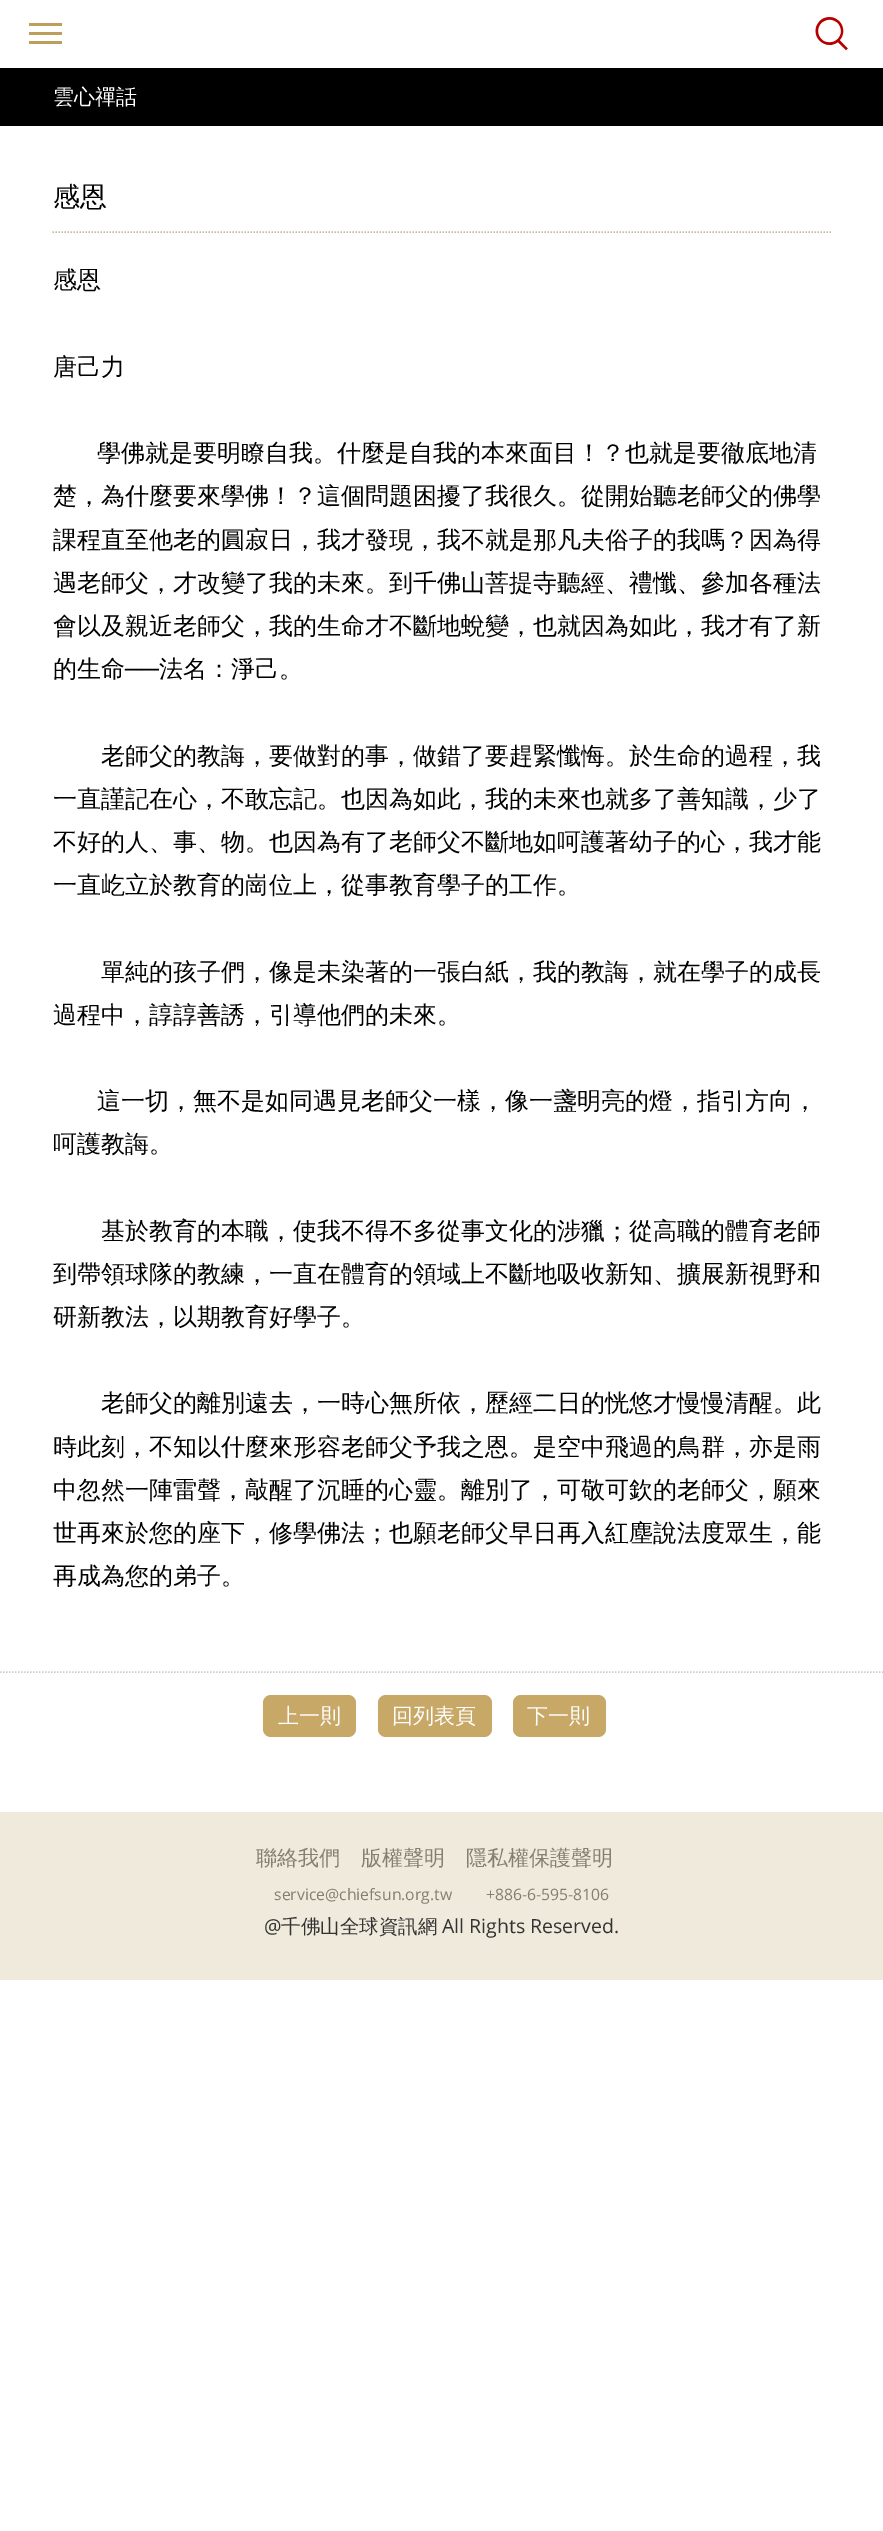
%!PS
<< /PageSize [883 2531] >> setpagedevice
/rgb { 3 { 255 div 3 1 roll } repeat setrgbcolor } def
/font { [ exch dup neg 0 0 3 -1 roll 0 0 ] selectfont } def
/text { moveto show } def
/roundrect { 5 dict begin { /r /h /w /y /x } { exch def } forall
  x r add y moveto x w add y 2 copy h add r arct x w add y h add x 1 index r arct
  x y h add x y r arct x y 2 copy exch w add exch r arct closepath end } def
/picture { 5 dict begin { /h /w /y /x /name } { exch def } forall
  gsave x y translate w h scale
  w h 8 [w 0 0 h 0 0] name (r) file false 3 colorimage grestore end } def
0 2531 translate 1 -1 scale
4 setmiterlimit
255 255 255 rgb
0 0 883 2531 rectfill
189 158 91 rgb
29 23 33 3 rectfill
29 32 33 3 rectfill
29 41 33 3 rectfill
(img_01.rgb) 815 17 33 34 picture
0 0 0 rgb
0 68 883 58 rectfill
198 186 160 rgb
1.5 setlinewidth
[1.5 1.5] 0 setdash
52.5 232 moveto 778.5 0 rlineto stroke
204 204 204 rgb
0 1672 moveto 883.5 0 rlineto stroke
199 168 102 rgb
263 1695 93 42 8 roundrect fill
378 1695 114 42 8 roundrect fill
513 1695 93 42 8 roundrect fill
239 234 220 rgb
0 1812 883 168 rectfill
/WenQuanYiZenHei-Medium 21 font
255 255 255 rgb
(雲心禪話) 53 104 text
/WenQuanYiZenHei-Medium 27 font
0 0 0 rgb
(感恩) 53 206 text
/WenQuanYiZenHei-Medium 24 font
(感恩) 53 288 text
(唐己力) 53 375 text
(學佛就是要明瞭自我。什麼是自我的本來面目！？也就是要徹底地清) 97 461 text
(楚，為什麼要來學佛！？這個問題困擾了我很久。從開始聽老師父的佛學) 53 504 text
(課程直至他老的圓寂日，我才發現，我不就是那凡夫俗子的我嗎？因為得) 53 548 text
(遇老師父，才改變了我的未來。到千佛山菩提寺聽經、禮懺、參加各種法) 53 591 text
(會以及親近老師父，我的生命才不斷地蛻變，也就因為如此，我才有了新) 53 634 text
(的生命) 53 677 text
/LiberationSans-Regular 24 font
(──) 125 677 text
/WenQuanYiZenHei-Medium 24 font
(法名：淨己。) 159 677 text
(老師父的教誨，要做對的事，做錯了要趕緊懺悔。於生命的過程，我) 101 764 text
(一直謹記在心，不敢忘記。也因為如此，我的未來也就多了善知識，少了) 53 807 text
(不好的人、事、物。也因為有了老師父不斷地如呵護著幼子的心，我才能) 53 850 text
(一直屹立於教育的崗位上，從事教育學子的工作。) 53 893 text
(單純的孩子們，像是未染著的一張白紙，我的教誨，就在學子的成長) 101 980 text
(過程中，諄諄善誘，引導他們的未來。) 53 1023 text
(這一切，無不是如同遇見老師父一樣，像一盞明亮的燈，指引方向，) 97 1109 text
(呵護教誨。) 53 1152 text
(基於教育的本職，使我不得不多從事文化的涉獵；從高職的體育老師) 101 1239 text
(到帶領球隊的教練，一直在體育的領域上不斷地吸收新知、擴展新視野和) 53 1282 text
(研新教法，以期教育好學子。) 53 1325 text
(老師父的離別遠去，一時心無所依，歷經二日的恍悠才慢慢清醒。此) 101 1411 text
(時此刻，不知以什麼來形容老師父予我之恩。是空中飛過的鳥群，亦是雨) 53 1455 text
(中忽然一陣雷聲，敲醒了沉睡的心靈。離別了，可敬可欽的老師父，願來) 53 1498 text
(世再來於您的座下，修學佛法；也願老師父早日再入紅塵說法度眾生，能) 53 1541 text
(再成為您的弟子。) 53 1584 text
/WenQuanYiZenHei-Medium 21 font
255 255 255 rgb
(上一則) 278 1723 text
(回列表頁) 392 1723 text
(下一則) 527 1723 text
133 127 114 rgb
(聯絡我們) 256 1865 text
(版權聲明) 361 1865 text
(隱私權保護聲明) 466 1865 text
/OpenSans-Regular 15.75 font
(service@chiefsun.org.tw) 274 1900 text
(+886-6-595-8106) 486 1900 text
/OpenSans-Regular 19.5 font
51 51 51 rgb
(@) 264 1933 text
/WenQuanYiZenHei-Medium 19.5 font
(千佛山全球資訊網) 281 1933 text
/OpenSans-Regular 19.5 font
(All Rights Reserved.) 442 1933 text
showpage
